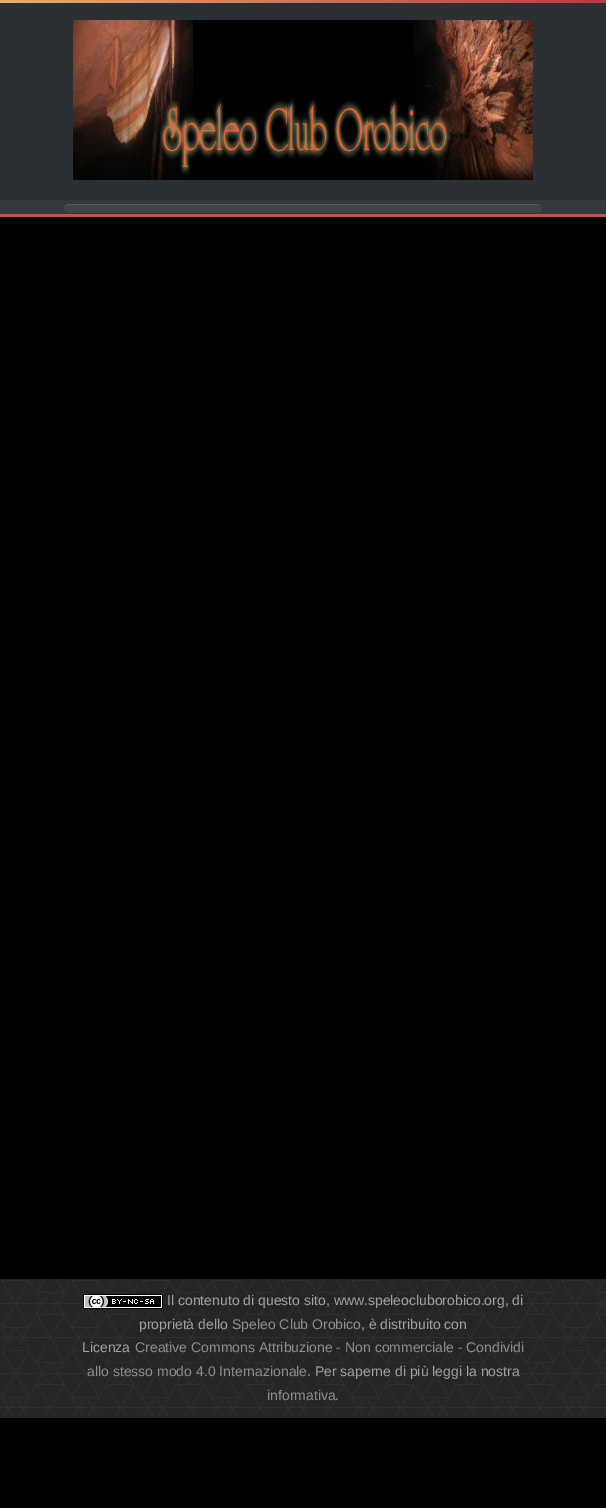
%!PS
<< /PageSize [606 1508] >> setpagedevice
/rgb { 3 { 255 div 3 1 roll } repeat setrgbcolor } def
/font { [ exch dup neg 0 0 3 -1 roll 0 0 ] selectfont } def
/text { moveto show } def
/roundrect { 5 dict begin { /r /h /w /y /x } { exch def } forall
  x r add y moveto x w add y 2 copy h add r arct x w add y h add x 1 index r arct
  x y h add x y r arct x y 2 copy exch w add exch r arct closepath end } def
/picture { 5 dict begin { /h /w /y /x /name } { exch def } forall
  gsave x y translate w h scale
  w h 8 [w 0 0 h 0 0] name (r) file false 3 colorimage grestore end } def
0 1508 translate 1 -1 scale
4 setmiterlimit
0 0 0 rgb
0 0 606 1508 rectfill
43 48 52 rgb
0 3 606 197 rectfill
gsave 0 0 moveto 606 0 rlineto 0 3 rlineto -606 0 rlineto closepath clip newpath
<< /ShadingType 2 /ColorSpace /DeviceRGB /Coords [0 1.5 606 1.5] /Extend [true true] /Function << /FunctionType 2 /Domain [0 1] /C0 [0.894 0.698 0.431] /C1 [0.765 0.2 0.271] /N 1 >> >> shfill grestore
(img_01.rgb) 73 20 460 160 picture
51 57 62 rgb
0 200 606 14 rectfill
66 66 66 rgb
63 203 480 11 5 roundrect fill
88 88 88 rgb
68 205 moveto 471 0 rlineto 2 1 rlineto 1 3 rlineto -1 -4 rlineto -2 -2 rlineto -471 0 rlineto -3 0 -4 3 -4 6 rcurveto 0 -2 2 -4 4 -4 rcurveto closepath fill
52 52 52 rgb
68 204 moveto 470 0 rlineto 3 0 4 3 4 5 rcurveto 0 -3 -1 -6 -4 -6 rcurveto -470 0 rlineto -3 0 -4 3 -4 5 rcurveto 0 -2 2 -4 4 -4 rcurveto closepath fill
68 203 moveto 470 0 rlineto 2 0 3 1 4 2 rcurveto 2 4 0 9 -4 9 rcurveto -470 0 rlineto -7 0 -7 -11 0 -11 rcurveto closepath 68 203 moveto 470 0 rlineto 3 0 4 3 4 5 rcurveto 0 3 -1 5 -4 5 rcurveto -470 0 rlineto -6 0 -5 -10 0 -10 rcurveto closepath eofill
199 81 69 rgb
0 214 606 3 rectfill
37 37 37 rgb
0 1279 606 139 rectfill
(img_02.rgb) 0 1279 606 139 picture
(img_03.rgb) 83 1294 80 15 picture
/LiberationSans-Regular 14 font
161 161 161 rgb
(Il contenuto di questo sito, www.speleocluborobico.org, di) 167 1305 text
(proprietà dello) 139 1329 text
141 141 141 rgb
(Speleo Club Orobico) 232 1329 text
161 161 161 rgb
(, è distribuito con) 361 1329 text
(Licenza) 82 1352 text
141 141 141 rgb
(Creative Commons Attribuzione - Non commerciale - Condividi) 135 1352 text
(allo stesso modo 4.0 Internazionale) 87 1376 text
161 161 161 rgb
(. Per saperne di più leggi la nostra) 307 1376 text
141 141 141 rgb
(informativa) 267 1400 text
161 161 161 rgb
(.) 335 1400 text
showpage
